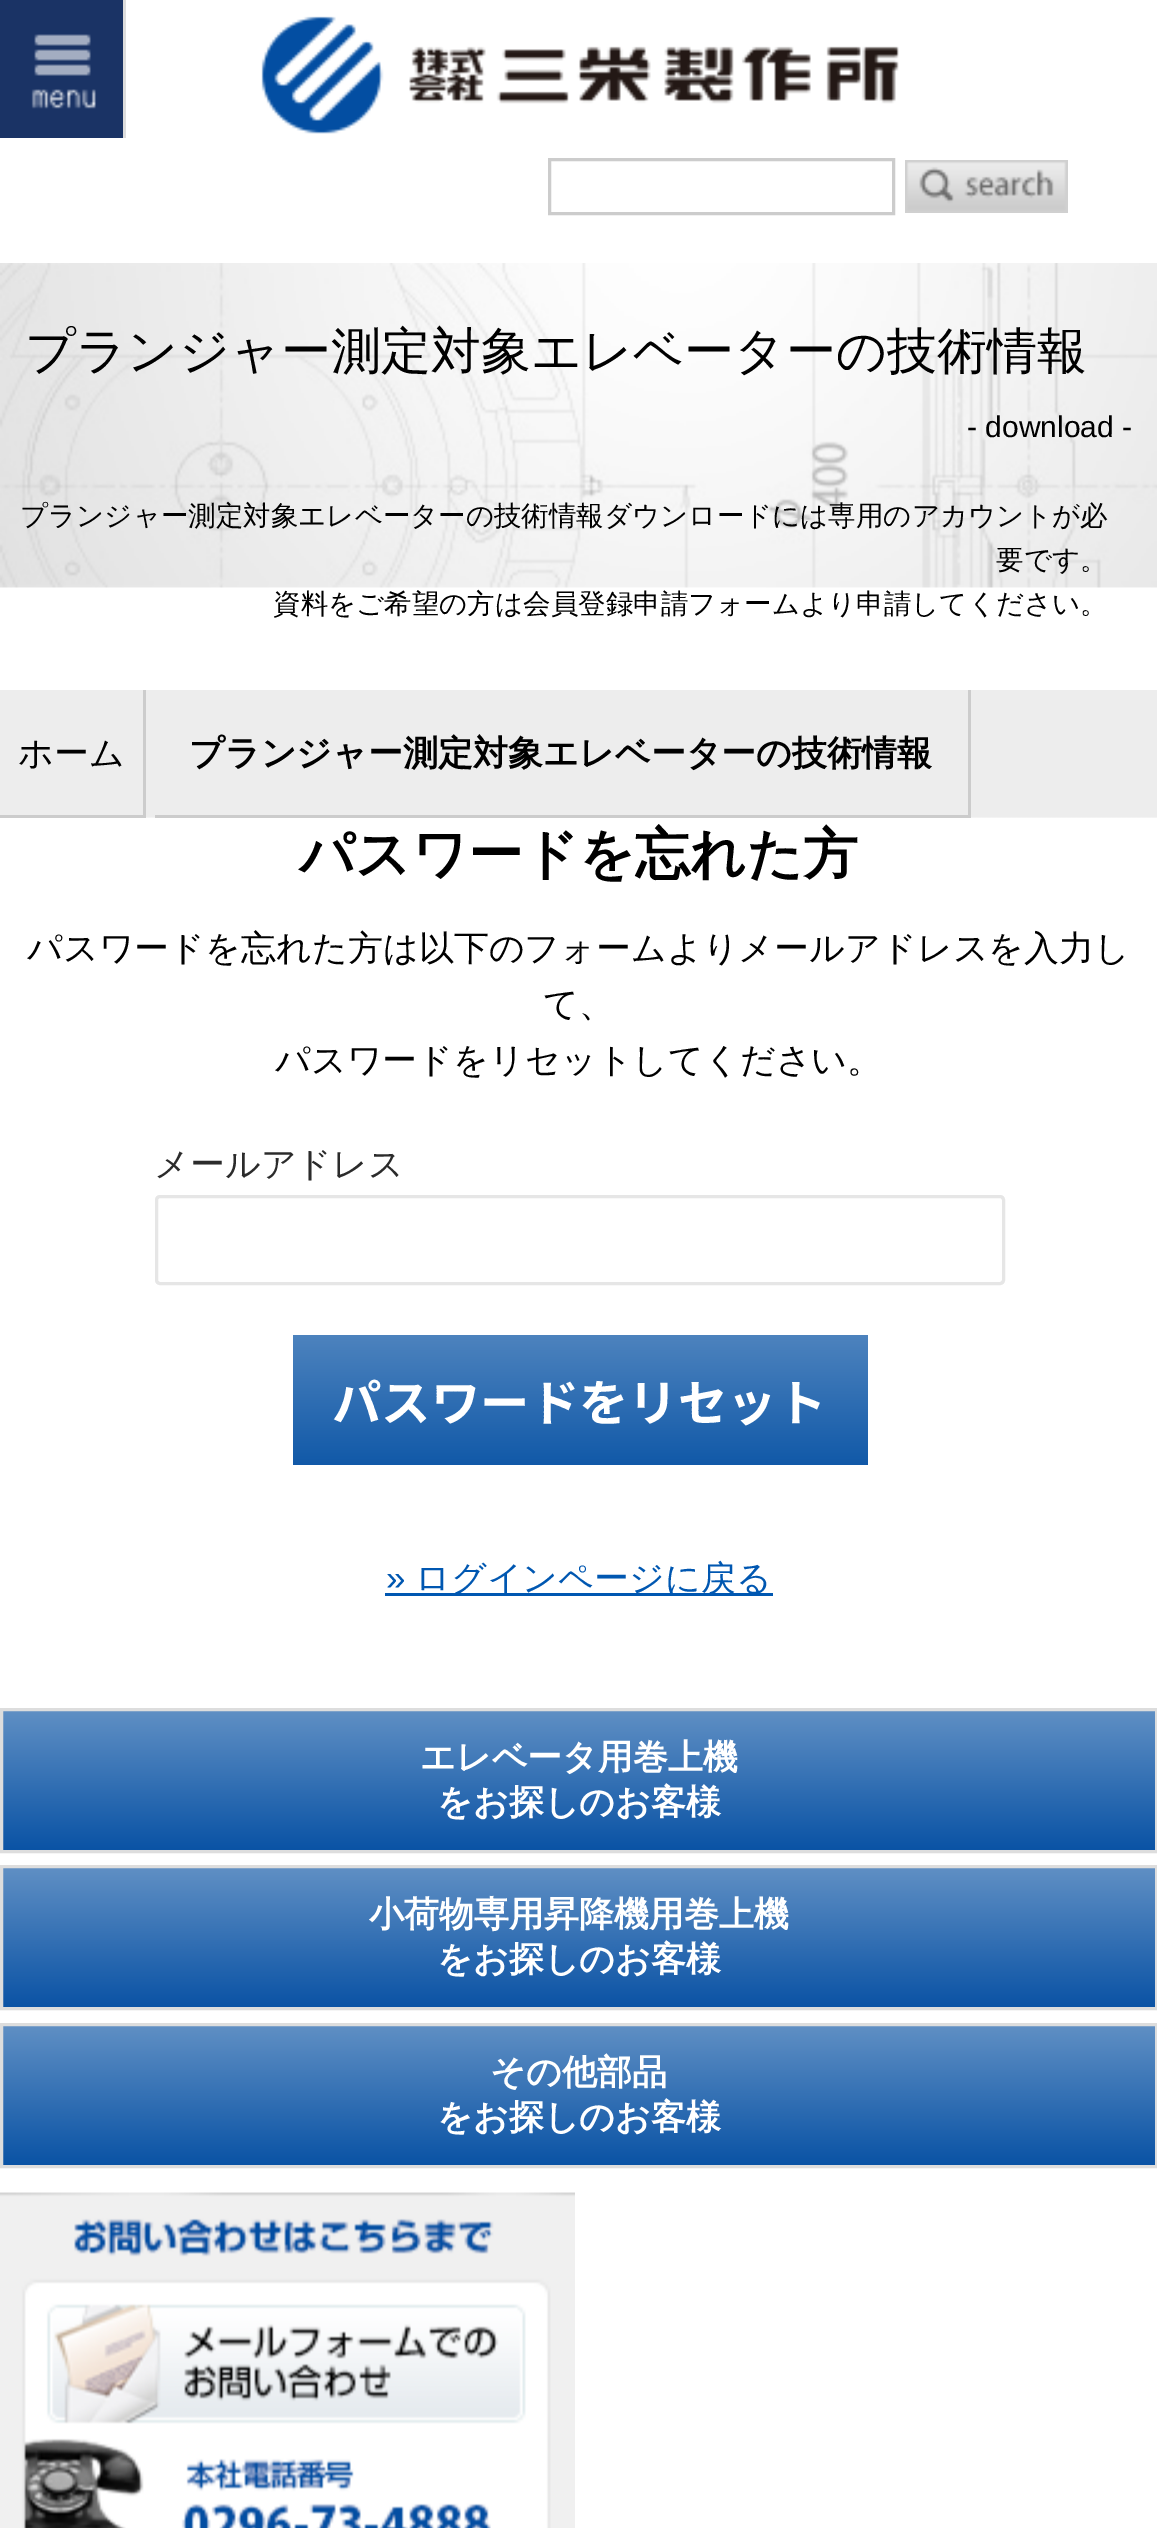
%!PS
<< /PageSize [1157 2528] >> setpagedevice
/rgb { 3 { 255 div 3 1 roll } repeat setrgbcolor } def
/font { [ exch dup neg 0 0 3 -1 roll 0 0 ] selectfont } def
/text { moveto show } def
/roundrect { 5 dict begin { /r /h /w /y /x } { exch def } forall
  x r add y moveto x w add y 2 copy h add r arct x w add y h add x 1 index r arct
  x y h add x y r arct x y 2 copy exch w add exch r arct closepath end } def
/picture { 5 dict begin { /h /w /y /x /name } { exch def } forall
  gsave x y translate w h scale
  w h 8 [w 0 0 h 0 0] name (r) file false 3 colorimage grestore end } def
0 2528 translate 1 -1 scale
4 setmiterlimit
255 255 255 rgb
0 0 1157 2528 rectfill
221 221 221 rgb
123 0 3 138 rectfill
26 51 101 rgb
0 0 123 138 rectfill
(img_01.rgb) 31 34 65 75 picture
(img_02.rgb) 261 16 638 118 picture
204 204 204 rgb
3 setlinewidth
549.5 159.5 344 54 rectstroke
(img_03.rgb) 905 160 163 53 picture
(img_04.rgb) 0 263 1157 325 picture
237 237 237 rgb
0 690 1157 128 rectfill
204 204 204 rgb
143 690 3 128 rectfill
0 815 145 3 rectfill
(img_05.rgb) 146 817 1011 1 picture
968 690 3 128 rectfill
155 815 815 3 rectfill
230 230 230 rgb
156.5 1196.5 847 87 3.5 roundrect stroke
gsave 293 1335 moveto 575 0 rlineto 0 130 rlineto -575 0 rlineto closepath clip newpath
<< /ShadingType 2 /ColorSpace /DeviceRGB /Coords [580 1335 580 1465] /Extend [true true] /Function << /FunctionType 2 /Domain [0 1] /C0 [0.302 0.514 0.745] /C1 [0.067 0.349 0.659] /N 1 >> >> shfill grestore
0 87 177 rgb
385 1593 388 3 rectfill
gsave 3 1711 moveto 1152 0 rlineto 0 139 rlineto -1152 0 rlineto closepath clip newpath
<< /ShadingType 2 /ColorSpace /DeviceRGB /Coords [579 1710 579 1850] /Extend [true true] /Function << /FunctionType 2 /Domain [0 1] /C0 [0.373 0.561 0.769] /C1 [0.039 0.325 0.647] /N 1 >> >> shfill grestore
221 221 221 rgb
1.5 1709.5 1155 142 rectstroke
gsave 3 1868 moveto 1152 0 rlineto 0 139 rlineto -1152 0 rlineto closepath clip newpath
<< /ShadingType 2 /ColorSpace /DeviceRGB /Coords [579 1868 579 2008] /Extend [true true] /Function << /FunctionType 2 /Domain [0 1] /C0 [0.373 0.561 0.769] /C1 [0.039 0.325 0.647] /N 1 >> >> shfill grestore
1.5 1866.5 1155 142 rectstroke
gsave 3 2026 moveto 1152 0 rlineto 0 139 rlineto -1152 0 rlineto closepath clip newpath
<< /ShadingType 2 /ColorSpace /DeviceRGB /Coords [579 2025 579 2165] /Extend [true true] /Function << /FunctionType 2 /Domain [0 1] /C0 [0.373 0.561 0.769] /C1 [0.039 0.325 0.647] /N 1 >> >> shfill grestore
1.5 2024.5 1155 142 rectstroke
(img_06.rgb) 0 2192 575 336 picture
/WenQuanYiZenHei-Medium 50 font
0 0 0 rgb
(プランジャー測定対象エレベーターの技術情報) 25 368 text
/LiberationSans-Regular 30 font
(- download -) 967 437 text
/WenQuanYiZenHei-Medium 27.5 font
(プランジャー測定対象エレベーターの技術情報ダウンロードには専用のアカウントが必) 20 525 text
(要です。) 996 569 text
(資料をご希望の方は会員登録申請フォームより申請してください。) 273 613 text
/WenQuanYiZenHei-Medium 35 font
(ホーム) 18 765 text
/WenQuanYiZenHei-Bold 35 font
(プランジャー測定対象エレベーターの技術情報) 189 765 text
/WenQuanYiZenHei-Bold 55 font
(パスワードを忘れた方) 299 873 text
/WenQuanYiZenHei-Medium 35 font
(パスワードを忘れた方は以下のフォームよりメールアドレスを入力し) 27 960 text
(て、) 543 1016 text
(パスワードをリセットしてください。) 275 1072 text
43 43 43 rgb
(メールアドレス) 154 1176 text
/NotoSansJP-Bold 49.4 font
255 255 255 rgb
(パスワードをリセット) 332 1421 text
/LiberationSans-Regular 35 font
0 87 177 rgb
(») 386 1590 text
/WenQuanYiZenHei-Medium 35 font
(ログインページに戻る) 415 1590 text
/WenQuanYiZenHei-Bold 35 font
255 255 255 rgb
(エレベータ用巻上機) 420 1769 text
(をお探しのお客様) 437 1814 text
(小荷物専用昇降機用巻上機) 369 1926 text
(をお探しのお客様) 437 1971 text
(その他部品) 490 2084 text
(をお探しのお客様) 437 2129 text
showpage
